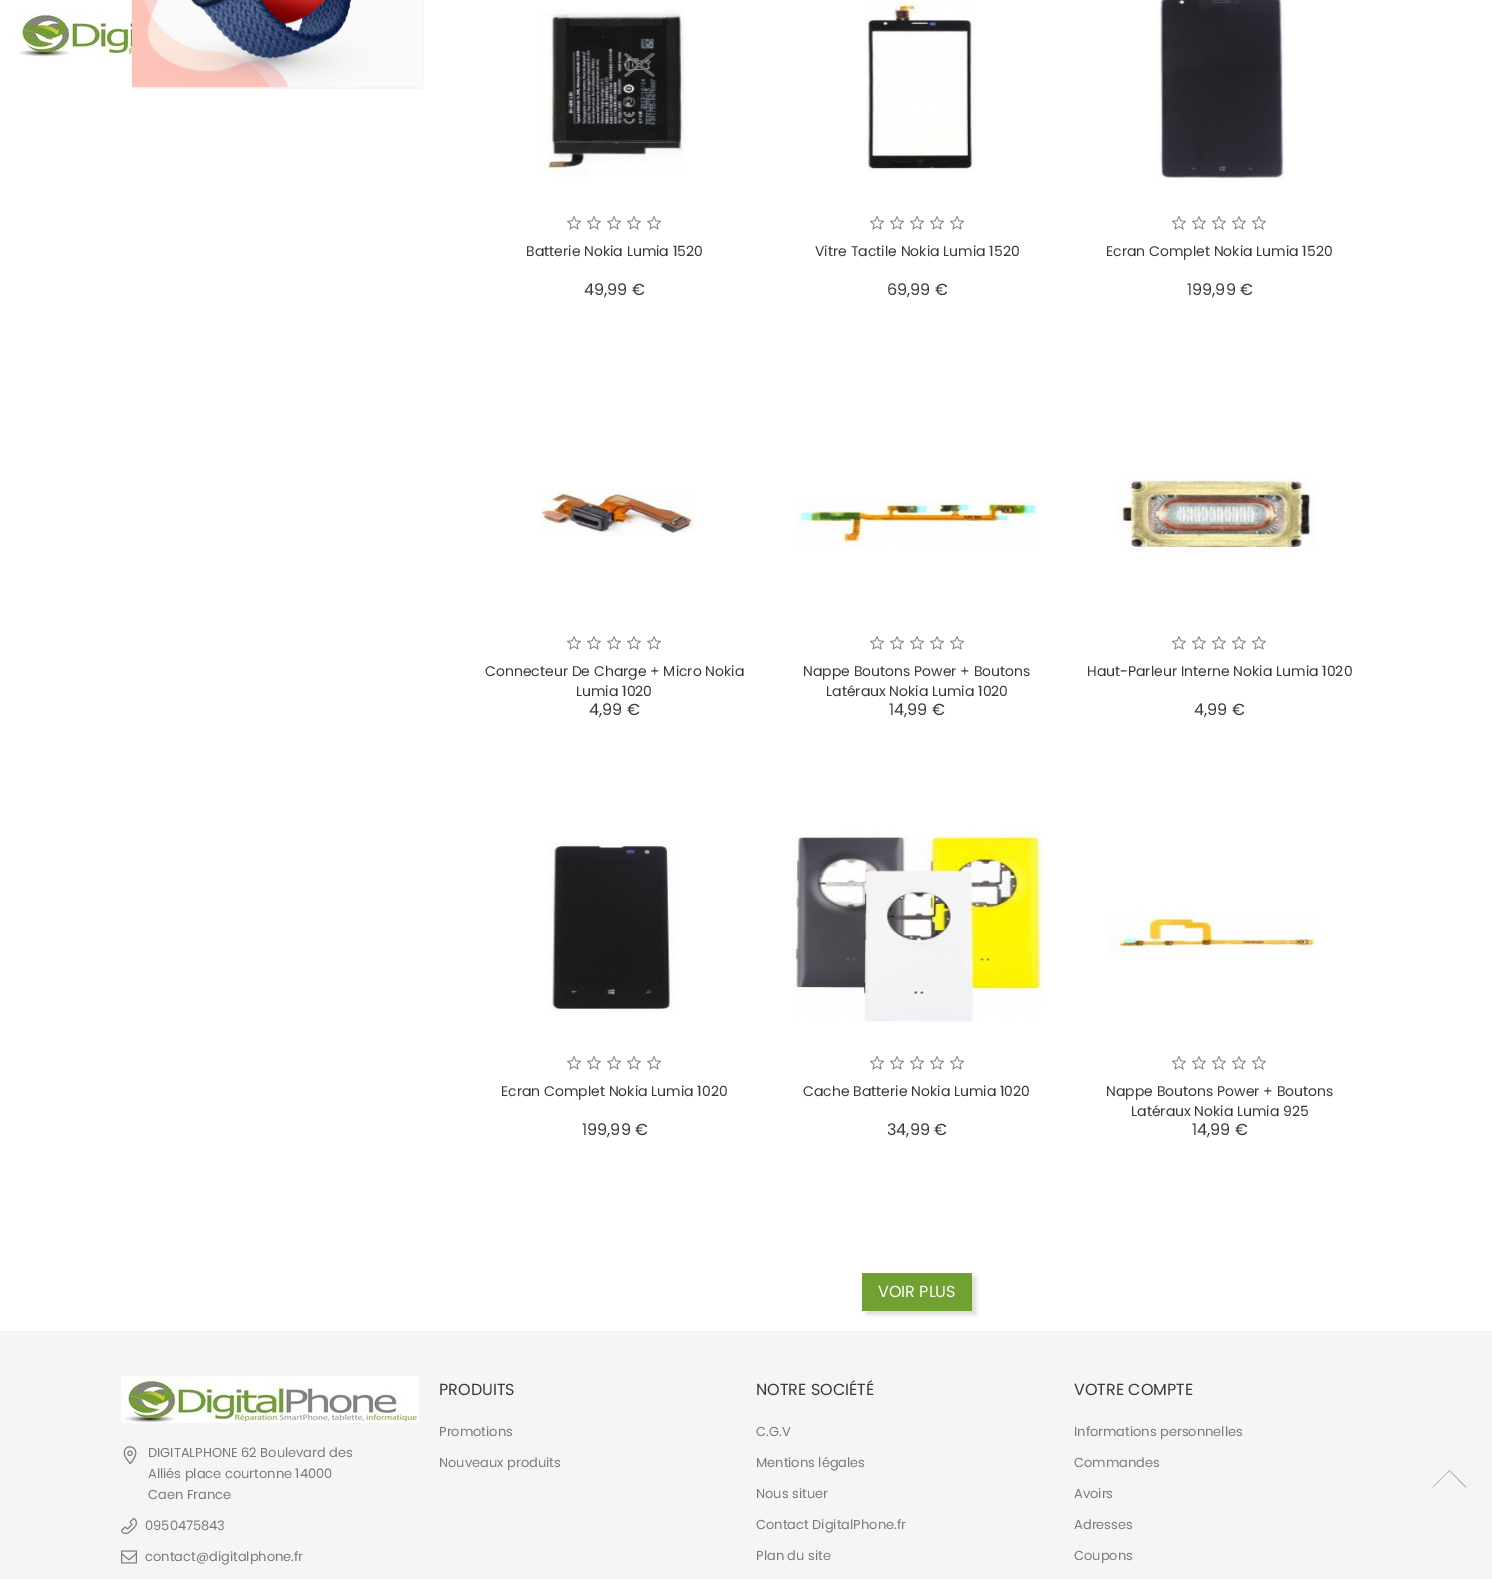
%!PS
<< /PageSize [1492 1579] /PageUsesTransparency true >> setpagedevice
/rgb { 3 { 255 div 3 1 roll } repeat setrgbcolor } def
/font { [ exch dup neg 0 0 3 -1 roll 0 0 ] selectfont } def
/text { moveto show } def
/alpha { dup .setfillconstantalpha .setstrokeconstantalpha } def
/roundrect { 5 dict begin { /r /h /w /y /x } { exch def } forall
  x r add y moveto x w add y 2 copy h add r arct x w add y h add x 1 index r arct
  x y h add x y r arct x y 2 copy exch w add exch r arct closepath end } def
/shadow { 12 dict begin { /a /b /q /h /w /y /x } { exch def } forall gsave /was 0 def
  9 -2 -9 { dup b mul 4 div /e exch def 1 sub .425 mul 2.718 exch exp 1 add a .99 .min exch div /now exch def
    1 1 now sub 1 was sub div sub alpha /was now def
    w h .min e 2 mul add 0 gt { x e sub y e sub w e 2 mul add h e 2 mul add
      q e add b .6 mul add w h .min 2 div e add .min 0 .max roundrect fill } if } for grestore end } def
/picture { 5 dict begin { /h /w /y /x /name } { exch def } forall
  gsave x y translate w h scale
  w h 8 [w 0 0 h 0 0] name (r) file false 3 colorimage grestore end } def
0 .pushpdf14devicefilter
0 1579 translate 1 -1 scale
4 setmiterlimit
255 255 255 rgb
0 0 1492 1579 rectfill
(img_01.rgb) 15 10 117 47 picture
(img_02.rgb) 131 0 293 89 picture
(img_03.rgb) 541 10 144 167 picture
(img_04.rgb) 567 216 14 14 picture
(img_04.rgb) 587 216 14 14 picture
(img_04.rgb) 607 216 14 14 picture
(img_04.rgb) 627 216 14 14 picture
(img_04.rgb) 647 216 14 14 picture
(img_05.rgb) 866 2 110 170 picture
(img_04.rgb) 870 216 14 14 picture
(img_04.rgb) 890 216 14 14 picture
(img_04.rgb) 910 216 14 14 picture
(img_04.rgb) 930 216 14 14 picture
(img_04.rgb) 950 216 14 14 picture
(img_06.rgb) 1154 0 131 182 picture
(img_04.rgb) 1172 216 14 14 picture
(img_04.rgb) 1192 216 14 14 picture
(img_04.rgb) 1212 216 14 14 picture
(img_04.rgb) 1232 216 14 14 picture
(img_04.rgb) 1252 216 14 14 picture
(img_07.rgb) 540 488 157 48 picture
(img_04.rgb) 567 636 14 14 picture
(img_04.rgb) 587 636 14 14 picture
(img_04.rgb) 607 636 14 14 picture
(img_04.rgb) 627 636 14 14 picture
(img_04.rgb) 647 636 14 14 picture
(img_08.rgb) 794 500 245 46 picture
(img_04.rgb) 870 636 14 14 picture
(img_04.rgb) 890 636 14 14 picture
(img_04.rgb) 910 636 14 14 picture
(img_04.rgb) 930 636 14 14 picture
(img_04.rgb) 950 636 14 14 picture
(img_09.rgb) 1118 478 197 74 picture
(img_04.rgb) 1172 636 14 14 picture
(img_04.rgb) 1192 636 14 14 picture
(img_04.rgb) 1212 636 14 14 picture
(img_04.rgb) 1232 636 14 14 picture
(img_04.rgb) 1252 636 14 14 picture
(img_10.rgb) 549 842 127 169 picture
(img_04.rgb) 567 1056 14 14 picture
(img_04.rgb) 587 1056 14 14 picture
(img_04.rgb) 607 1056 14 14 picture
(img_04.rgb) 627 1056 14 14 picture
(img_04.rgb) 647 1056 14 14 picture
(img_11.rgb) 792 830 250 192 picture
(img_04.rgb) 870 1056 14 14 picture
(img_04.rgb) 890 1056 14 14 picture
(img_04.rgb) 910 1056 14 14 picture
(img_04.rgb) 930 1056 14 14 picture
(img_04.rgb) 950 1056 14 14 picture
(img_12.rgb) 1108 911 208 46 picture
(img_04.rgb) 1172 1056 14 14 picture
(img_04.rgb) 1192 1056 14 14 picture
(img_04.rgb) 1212 1056 14 14 picture
(img_04.rgb) 1232 1056 14 14 picture
(img_04.rgb) 1252 1056 14 14 picture
0 0 0 rgb
866 1277 110 38 0 2 0.14 shadow
113 161 49 rgb
862 1273 110 38 rectfill
245 245 245 rgb
0 1331 1492 248 rectfill
(img_13.rgb) 121 1376 298 47 picture
(img_14.rgb) 123 1446 14 19 picture
(img_15.rgb) 121 1518 16 16 picture
(img_16.rgb) 121 1550 16 14 picture
178 178 178 rgb
1449.5 1470 moveto -17 17 rlineto 0 0 0 0.5 0.5 0.5 rcurveto 16.5 -16.5 rlineto 16 16.5 rlineto 0.5 0 1 -0.5 0.5 -1 rcurveto closepath fill
/Poppins-Regular 14 font
58 58 58 rgb
(Batterie Nokia Lumia 1520) 526 256 text
/Poppins-Regular 16 font
(49,99 €) 584 295 text
/Poppins-Regular 14 font
(Vitre Tactile Nokia Lumia 1520) 815 256 text
/Poppins-Regular 16 font
(69,99 €) 887 295 text
/Poppins-Regular 14 font
(Ecran Complet Nokia Lumia 1520) 1106 256 text
/Poppins-Regular 16 font
(199,99 €) 1187 295 text
/Poppins-Regular 14 font
(Connecteur De Charge + Micro Nokia) 485 676 text
(Lumia 1020) 576 696 text
/Poppins-Regular 16 font
(4,99 €) 589 715 text
/Poppins-Regular 14 font
(Nappe Boutons Power + Boutons) 803 676 text
(Latéraux Nokia Lumia 1020) 826 696 text
/Poppins-Regular 16 font
(14,99 €) 889 715 text
/Poppins-Regular 14 font
(Haut-Parleur Interne Nokia Lumia 1020) 1087 676 text
/Poppins-Regular 16 font
(4,99 €) 1194 715 text
/Poppins-Regular 14 font
(Ecran Complet Nokia Lumia 1020) 501 1096 text
/Poppins-Regular 16 font
(199,99 €) 582 1135 text
/Poppins-Regular 14 font
(Cache Batterie Nokia Lumia 1020) 803 1096 text
/Poppins-Regular 16 font
(34,99 €) 887 1135 text
/Poppins-Regular 14 font
(Nappe Boutons Power + Boutons) 1106 1096 text
(Latéraux Nokia Lumia 925) 1131 1116 text
/Poppins-Regular 16 font
(14,99 €) 1192 1135 text
255 255 255 rgb
(VOIR PLUS) 878 1297 text
/Poppins-Regular 13 font
122 122 122 rgb
(DIGITALPHONE 62 Boulevard des) 148 1457 text
(Alliés place courtonne 14000) 148 1478 text
(Caen France) 148 1499 text
(0950475843) 145 1530 text
(contact@digitalphone.fr) 145 1561 text
/Poppins-Regular 16 font
58 58 58 rgb
(PRODUITS) 439 1395 text
/Poppins-Regular 13 font
122 122 122 rgb
(Promotions) 439 1436 text
(Nouveaux produits) 439 1467 text
/Poppins-Regular 16 font
58 58 58 rgb
(NOTRE SOCIÉTÉ) 756 1395 text
/Poppins-Regular 13 font
122 122 122 rgb
(C.G.V) 756 1436 text
(Mentions légales) 756 1467 text
(Nous situer) 756 1498 text
(Contact DigitalPhone.fr) 756 1529 text
(Plan du site) 756 1560 text
/Poppins-Regular 16 font
58 58 58 rgb
(VOTRE COMPTE) 1074 1395 text
/Poppins-Regular 13 font
122 122 122 rgb
(Informations personnelles) 1074 1436 text
(Commandes) 1074 1467 text
(Avoirs) 1074 1498 text
(Adresses) 1074 1529 text
(Coupons) 1074 1560 text
.poppdf14devicefilter showpage
